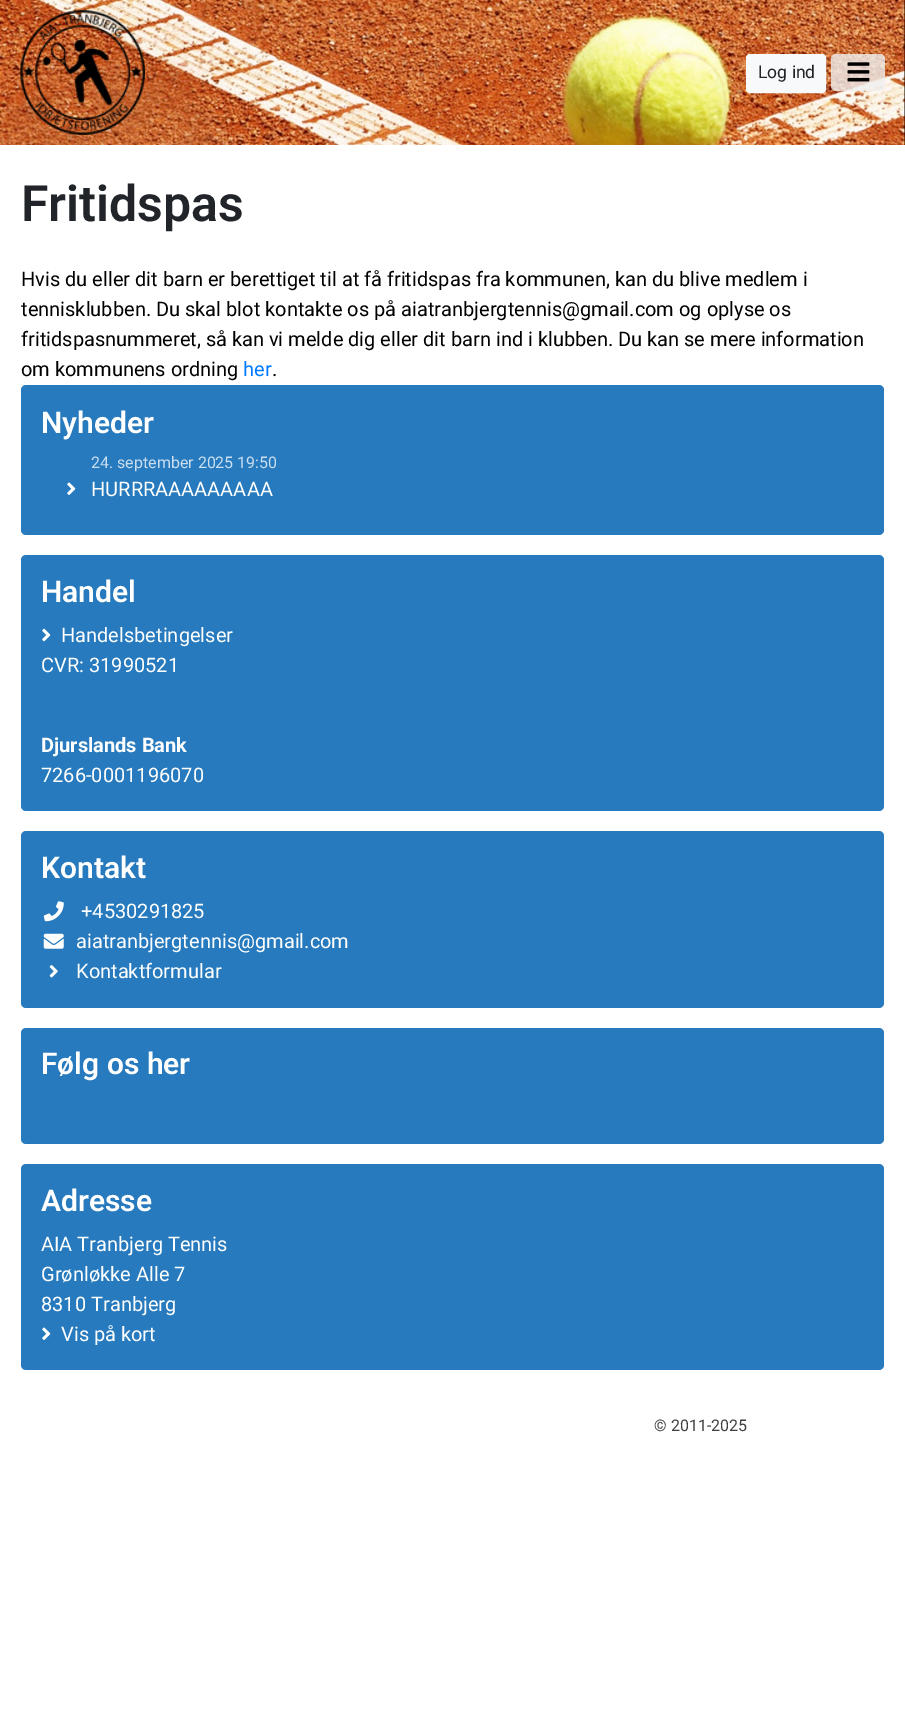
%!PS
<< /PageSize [905 1718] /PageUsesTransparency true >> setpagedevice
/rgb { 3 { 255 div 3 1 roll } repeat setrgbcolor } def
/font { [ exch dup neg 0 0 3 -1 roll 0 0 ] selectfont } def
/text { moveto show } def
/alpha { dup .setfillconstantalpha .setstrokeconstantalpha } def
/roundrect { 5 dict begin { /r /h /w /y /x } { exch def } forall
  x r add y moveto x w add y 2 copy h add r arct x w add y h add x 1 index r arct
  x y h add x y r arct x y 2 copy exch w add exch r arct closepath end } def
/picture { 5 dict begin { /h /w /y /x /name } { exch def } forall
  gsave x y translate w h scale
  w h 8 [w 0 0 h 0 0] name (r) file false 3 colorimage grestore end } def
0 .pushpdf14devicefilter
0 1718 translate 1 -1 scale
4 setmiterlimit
255 255 255 rgb
0 0 905 1718 rectfill
(img_01.rgb) 0 0 905 145 picture
(img_02.rgb) 20 10 125 125 picture
248 249 250 rgb
746.5 54.5 79 38 3.5 roundrect gsave fill grestore
stroke
0.8 alpha
239 239 239 rgb
831 54 54 37 5 roundrect fill
1 alpha
(img_03.rgb) 847 62 23 20 picture
38 122 189 rgb
21 385 863 150 5 roundrect fill
(img_04.rgb) 67 482 9 13 picture
21 555 863 256 5 roundrect fill
(img_05.rgb) 42 628 9 14 picture
21 831 863 177 5 roundrect fill
(img_06.rgb) 43 901 21 21 picture
(img_07.rgb) 43 933 21 16 picture
(img_08.rgb) 49 965 9 13 picture
21 1028 863 116 5 roundrect fill
21 1164 863 206 5 roundrect fill
(img_04.rgb) 42 1327 9 13 picture
/Roboto-Regular 17.5 font
33 37 41 rgb
(Log ind) 758 78 text
/Roboto-SemiBold 50 font
(Fritidspas) 21 221 text
/Roboto-Regular 20 font
0 0 0 rgb
(Hvis du eller dit barn er berettiget til at få fritidspas fra kommunen, kan du blive medlem i) 21 286 text
(tennisklubben. Du skal blot kontakte os på aiatranbjergtennis@gmail.com og oplyse os) 21 316 text
(fritidspasnummeret, så kan vi melde dig eller dit barn ind i klubben. Du kan se mere information) 21 346 text
(om kommunens ordning) 21 376 text
0 123 255 rgb
(her) 243 376 text
0 0 0 rgb
(.) 272 376 text
/Roboto-SemiBold 30 font
255 255 255 rgb
(Nyheder) 41 433 text
/Roboto-Regular 16 font
201 222 239 rgb
(24. september 2025 19:50) 91 468 text
/Roboto-Regular 20 font
255 255 255 rgb
(HURRRAAAAAAAAA) 91 496 text
/Roboto-SemiBold 30 font
(Handel) 41 602 text
/Roboto-Regular 20 font
(Handelsbetingelser) 61 642 text
(CVR: 31990521) 41 672 text
/Roboto-Bold 20 font
(Djurslands Bank) 41 752 text
/Roboto-Regular 20 font
(7266-0001196070) 41 782 text
/Roboto-SemiBold 30 font
(Kontakt) 41 878 text
/Roboto-Regular 20 font
(+4530291825) 81 918 text
(aiatranbjergtennis@gmail.com) 76 948 text
(Kontaktformular) 76 978 text
/Roboto-SemiBold 30 font
(Følg os her) 41 1074 text
(Adresse) 41 1211 text
/Roboto-Regular 20 font
(AIA Tranbjerg Tennis) 41 1251 text
(Grønløkke Alle 7) 41 1281 text
(8310 Tranbjerg) 41 1311 text
(Vis på kort) 61 1341 text
/Roboto-Regular 16 font
64 64 64 rgb
(© 2011-2025) 654 1431 text
.poppdf14devicefilter showpage
